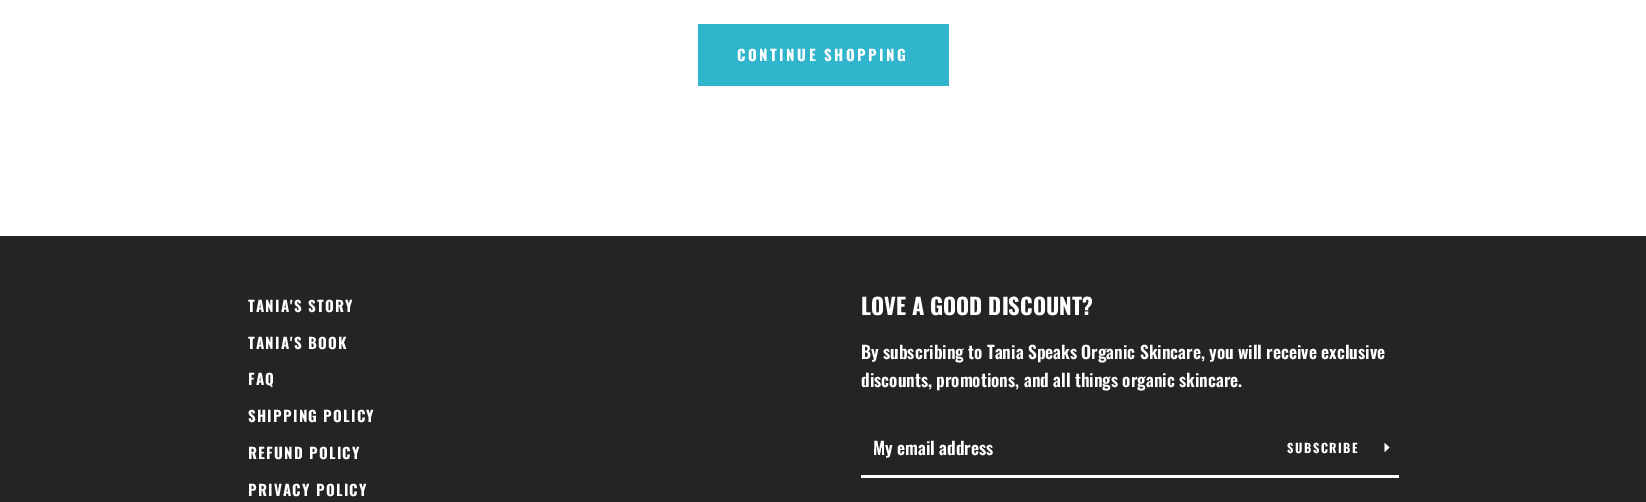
%!PS
<< /PageSize [1646 502] >> setpagedevice
/rgb { 3 { 255 div 3 1 roll } repeat setrgbcolor } def
/font { [ exch dup neg 0 0 3 -1 roll 0 0 ] selectfont } def
/text { moveto show } def
0 502 translate 1 -1 scale
4 setmiterlimit
255 255 255 rgb
0 0 1646 502 rectfill
49 181 204 rgb
698 24 251 62 rectfill
36 36 36 rgb
0 236 1646 266 rectfill
255 255 255 rgb
861 475 538 3 rectfill
1389.5 447.5 moveto -5 4.5 rlineto 0 -9 rlineto closepath fill
/Oswald-Bold 15 font
737 61 moveto 2.5 0 (CONTINUE SHOPPING) ashow
248 312 moveto 1.25 0 (TANIA'S STORY) ashow
248 349 moveto 1.25 0 (TANIA'S BOOK) ashow
248 385 moveto 1.25 0 (FAQ) ashow
248 422 moveto 1.25 0 (SHIPPING POLICY) ashow
248 459 moveto 1.25 0 (REFUND POLICY) ashow
248 496 moveto 1.25 0 (PRIVACY POLICY) ashow
/Oswald-Bold 22.5 font
(LOVE A GOOD DISCOUNT?) 861 315 text
/Oswald-SemiBold 17.5 font
(By subscribing to Tania Speaks Organic Skincare, you will receive exclusive) 861 359 text
(discounts, promotions, and all things organic skincare.) 861 387 text
(My email address) 873 455 text
/Oswald-Bold 12.5 font
1287 453 moveto 1.5 0 (SUBSCRIBE) ashow
showpage
